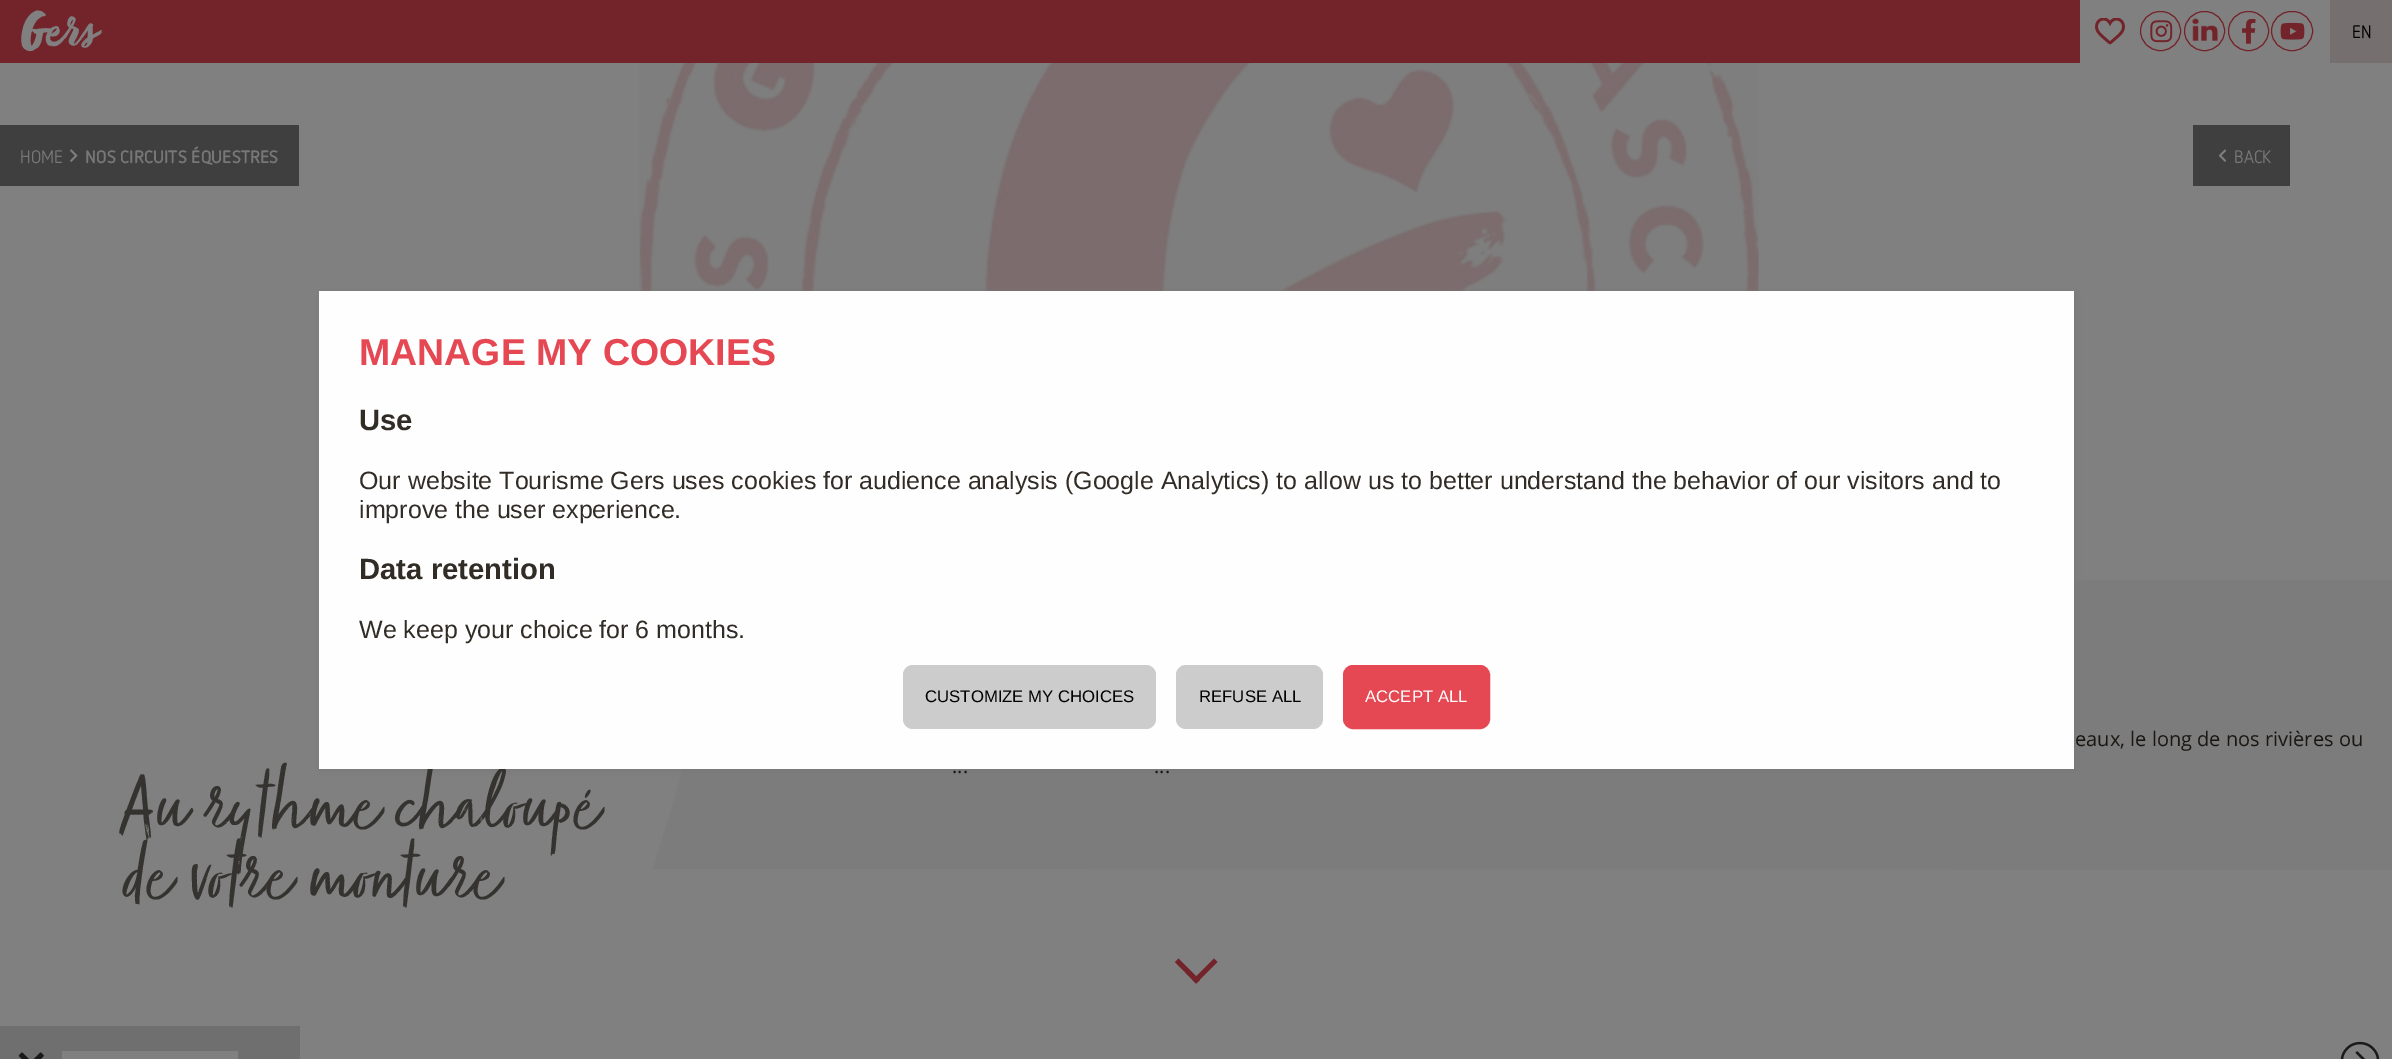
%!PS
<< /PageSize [2392 1059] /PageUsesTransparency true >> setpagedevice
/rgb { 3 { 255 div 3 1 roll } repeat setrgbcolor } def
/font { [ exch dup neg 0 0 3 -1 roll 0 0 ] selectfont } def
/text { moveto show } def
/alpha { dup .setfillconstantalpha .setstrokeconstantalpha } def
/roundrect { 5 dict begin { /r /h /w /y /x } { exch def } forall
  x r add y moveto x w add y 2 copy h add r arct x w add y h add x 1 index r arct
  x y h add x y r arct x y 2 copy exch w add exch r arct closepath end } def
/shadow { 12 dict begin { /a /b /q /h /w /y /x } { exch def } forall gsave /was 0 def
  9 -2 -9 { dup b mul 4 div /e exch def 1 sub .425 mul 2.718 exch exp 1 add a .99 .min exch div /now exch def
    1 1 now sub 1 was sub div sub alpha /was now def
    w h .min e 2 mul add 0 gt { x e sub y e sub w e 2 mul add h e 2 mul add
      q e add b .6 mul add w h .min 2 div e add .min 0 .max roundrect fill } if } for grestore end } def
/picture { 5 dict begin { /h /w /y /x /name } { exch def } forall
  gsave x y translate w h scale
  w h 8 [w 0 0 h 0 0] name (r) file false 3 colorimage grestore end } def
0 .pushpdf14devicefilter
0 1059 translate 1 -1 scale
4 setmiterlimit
128 128 128 rgb
0 0 2392 1059 rectfill
115 36 42 rgb
0 0 2080 63 rectfill
(img_01.rgb) 2095 18 30 27 picture
2140.5 11.5 40 39 19.5 roundrect stroke
(img_02.rgb) 2150 20 23 23 picture
2184.5 11.5 40 39 19.5 roundrect stroke
(img_03.rgb) 2192 18 26 23 picture
2228.5 11.5 40 39 19.5 roundrect stroke
(img_04.rgb) 2242 19 14 25 picture
2271.5 11.5 41 39 19.5 roundrect stroke
(img_05.rgb) 2280 22 25 18 picture
117 111 111 rgb
2330 0 62 63 rectfill
(img_06.rgb) 639 63 1120 228 picture
63 63 63 rgb
0 125 299 61 rectfill
(img_07.rgb) 70 149 8 13 picture
2193 125 97 61 rectfill
(img_08.rgb) 2219 149 7 13 picture
124 124 124 rgb
653 869 moveto 87 -289 rlineto 1652 0 rlineto 0 290 rlineto closepath fill
115 36 42 rgb
1192.5 980 moveto 21.5 -21.5 rlineto 3.5 3.5 rlineto -21.5 21.5 rlineto closepath fill
1175 962 moveto 3.5 -3.5 rlineto 21.5 21.5 rlineto -4 3.5 rlineto closepath fill
111 111 111 rgb
0 1026 300 33 rectfill
128 128 128 rgb
62 1051 176 8 rectfill
(img_09.rgb) 2340 1041 40 18 picture
(img_10.rgb) 18 1052 26 7 picture
119 119 119 rgb
321 294 1755 477 0 5 1 shadow
/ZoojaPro-Regular 60 font
128 128 128 rgb
(Gers) 20 51 text
/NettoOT-Regular 18 font
0 0 0 rgb
(EN) 2352 38 text
119 119 119 rgb
(HOME) 20 163 text
/NettoOT-Bold 18 font
(NOS CIRCUITS ÉQUESTRES) 85 163 text
/NettoOT-Regular 18 font
(BACK) 2234 163 text
/OpenSans-Regular 20 font
25 22 19 rgb
(eaux, le long de nos rivières ou) 2075 746 text
(...) 952 773 text
(...) 1154 773 text
/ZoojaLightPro-Light 90 font
53 51 48 rgb
(Au rythme chaloupé) 120 836 text
(de votre monture) 120 906 text
254 254 254 rgb
319 291 1755 478 rectfill
/LiberationSans-Bold 37.5 font
229 71 83 rgb
(MANAGE MY COOKIES) 359 365 text
/LiberationSans-Bold 29.25 font
49 44 37 rgb
(Use) 359 430 text
/LiberationSans-Regular 25 font
(Our website Tourisme Gers uses cookies for audience analysis \(Google Analytics\) to allow us to better understand the behavior of our visitors and to) 359 489 text
(improve the user experience.) 359 518 text
/LiberationSans-Bold 29.25 font
(Data retention) 359 579 text
/LiberationSans-Regular 25 font
(We keep your choice for 6 months.) 359 638 text
204 204 204 rgb
903 665 253 64 10 roundrect fill
/LiberationSans-Regular 16.75 font
0 0 0 rgb
(CUSTOMIZE MY CHOICES) 925 702 text
204 204 204 rgb
1176 665 147 64 10 roundrect fill
0 0 0 rgb
(REFUSE ALL) 1199 702 text
229 71 83 rgb
1344.5 666.5 144 61 8.5 roundrect gsave fill grestore
3 setlinewidth
stroke
254 254 254 rgb
(ACCEPT ALL) 1365 702 text
.poppdf14devicefilter showpage
